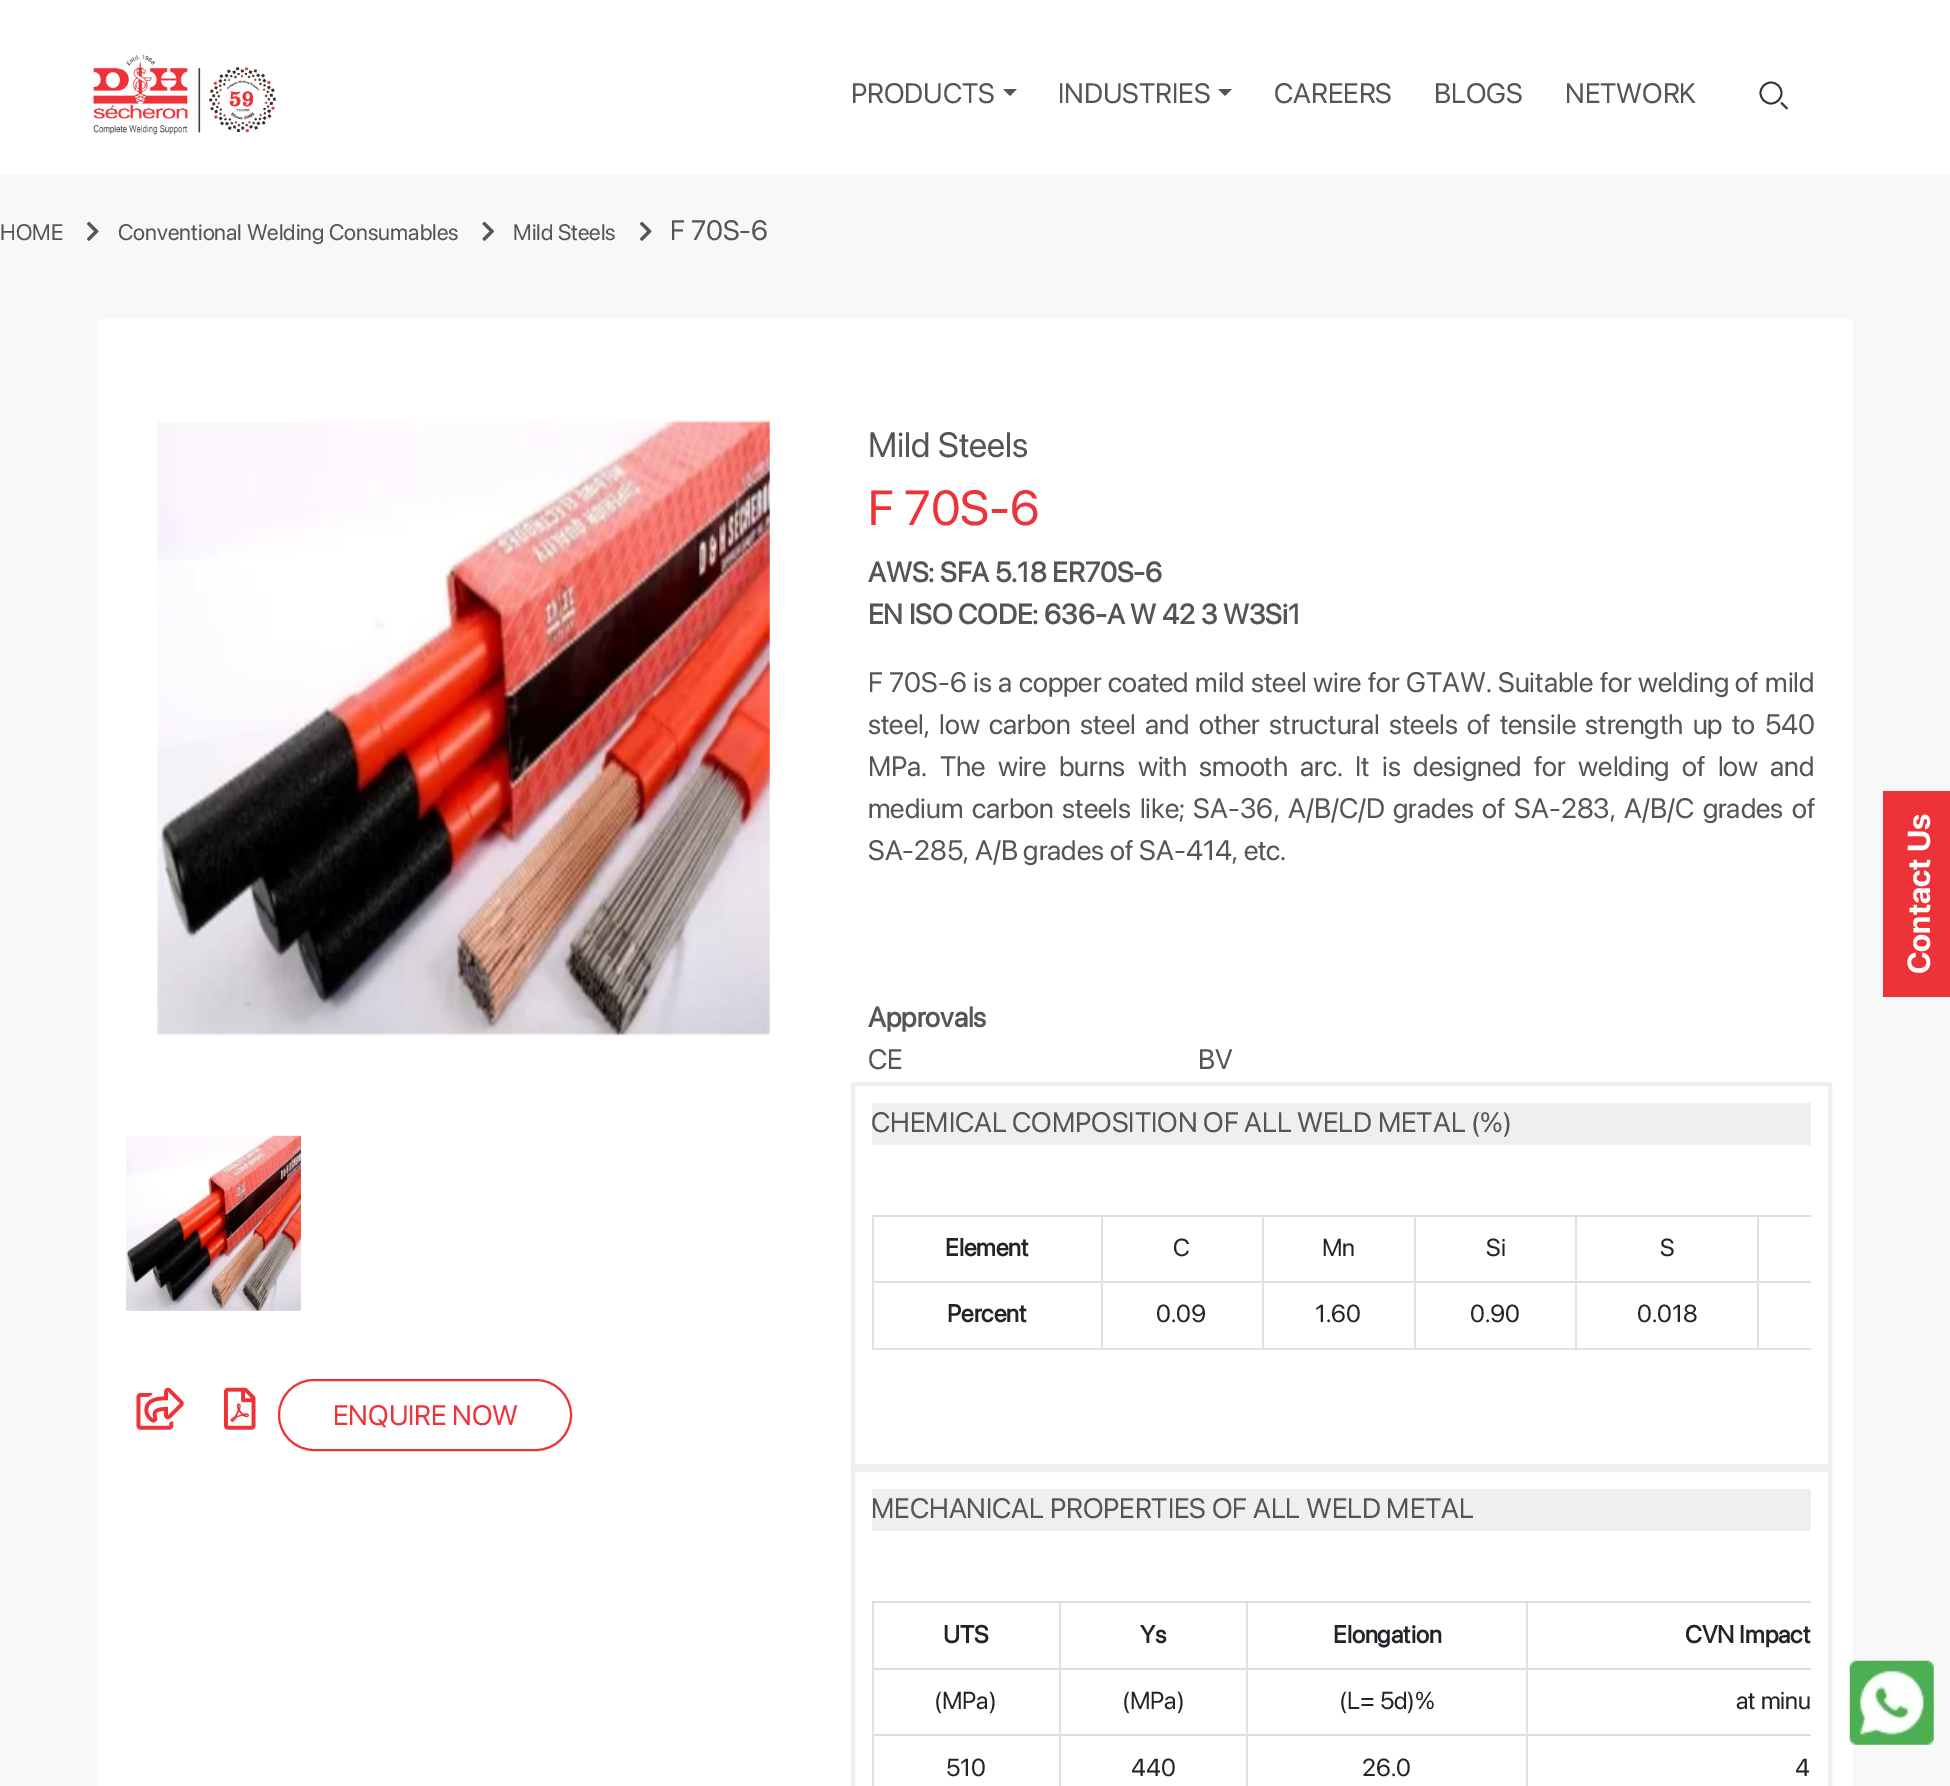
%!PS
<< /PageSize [1950 1786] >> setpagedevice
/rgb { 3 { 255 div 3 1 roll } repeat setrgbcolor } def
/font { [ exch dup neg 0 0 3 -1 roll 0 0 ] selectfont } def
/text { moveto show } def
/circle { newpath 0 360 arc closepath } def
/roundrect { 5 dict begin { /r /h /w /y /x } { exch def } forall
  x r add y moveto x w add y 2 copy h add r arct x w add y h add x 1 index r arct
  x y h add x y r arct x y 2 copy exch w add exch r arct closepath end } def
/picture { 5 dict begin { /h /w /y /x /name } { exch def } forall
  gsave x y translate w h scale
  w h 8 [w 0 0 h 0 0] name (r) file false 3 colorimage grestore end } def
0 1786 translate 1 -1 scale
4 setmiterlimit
248 248 248 rgb
0 0 1950 1786 rectfill
255 255 255 rgb
0 0 1950 175 rectfill
(img_01.rgb) 93 55 183 80 picture
85 85 85 rgb
1003 89 moveto 14 0 rlineto -7 7 rlineto closepath fill
1218 89 moveto 14 0 rlineto -7 7 rlineto closepath fill
51 51 51 rgb
1.8 setlinewidth
1771 93 10.5 circle stroke
1 setlinecap
1787 108.5 moveto -5.5 -5.5 rlineto stroke
(img_02.rgb) 87 221 12 20 picture
(img_03.rgb) 482 221 12 20 picture
(img_02.rgb) 640 221 12 20 picture
255 255 255 rgb
98 319 1755 1467 rectfill
(img_04.rgb) 157 420 613 616 picture
(img_05.rgb) 126 1135 175 176 picture
(img_06.rgb) 136 1387 48 43 picture
(img_07.rgb) 224 1387 32 43 picture
237 51 56 rgb
2 setlinewidth
0 setlinecap
279 1380 292 70 35 roundrect stroke
240 238 238 rgb
4 setlinewidth
853 1084 977 382 rectstroke
872 1103 939 42 rectfill
221 221 221 rgb
872 1215 939 2 rectfill
872 1281 939 2 rectfill
222 226 230 rgb
872 1348 939 2 rectfill
1101 1281 2 68 rectfill
1101 1215 2 68 rectfill
872 1281 2 68 rectfill
872 1215 2 68 rectfill
1262 1281 2 68 rectfill
1262 1215 2 68 rectfill
1414 1281 2 68 rectfill
1414 1215 2 68 rectfill
1575 1281 2 68 rectfill
1575 1215 2 68 rectfill
1757 1281 2 68 rectfill
1757 1215 2 68 rectfill
240 238 238 rgb
853 1470 977 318 rectstroke
872 1489 939 42 rectfill
221 221 221 rgb
872 1601 939 2 rectfill
872 1668 939 2 rectfill
872 1734 939 2 rectfill
222 226 230 rgb
1059 1734 2 52 rectfill
1059 1668 2 68 rectfill
1059 1601 2 69 rectfill
872 1734 2 52 rectfill
872 1668 2 68 rectfill
872 1601 2 69 rectfill
1246 1734 2 52 rectfill
1246 1668 2 68 rectfill
1246 1601 2 69 rectfill
1526 1734 2 52 rectfill
1526 1668 2 68 rectfill
1526 1601 2 69 rectfill
237 51 56 rgb
1883 791 67 206 rectfill
(img_08.rgb) 1849 1660 85 85 picture
/SFProDisplay-Regular 28 font
85 85 85 rgb
(PRODUCTS) 851 103 text
(INDUSTRIES) 1058 103 text
(CAREERS) 1274 103 text
(BLOGS) 1434 103 text
(NETWORK) 1565 103 text
/SFProDisplay-Regular 22.4 font
(HOME) 0 240 text
(Conventional Welding Consumables) 118 240 text
(Mild Steels) 513 240 text
/SFProDisplay-Regular 28 font
(F 70S-6) 670 240 text
237 51 56 rgb
(ENQUIRE NOW) 333 1425 text
/SFProDisplay-Regular 35 font
85 85 85 rgb
(Mild Steels) 868 457 text
/SFProDisplay-Regular 49 font
237 51 56 rgb
(F 70S-6) 868 525 text
/SFProDisplay-Bold 28 font
85 85 85 rgb
(AWS: SFA 5.18 ER70S-6) 868 582 text
(EN ISO CODE: 636-A W 42 3 W3Si1) 868 624 text
/SFProDisplay-Regular 28 font
868 692 moveto 0.5 0 32 (F 70S-6 is a copper coated mild steel wire for GTAW. Suitable for welding of mild) widthshow
868 734 moveto 3.5 0 32 (steel, low carbon steel and other structural steels of tensile strength up to 540) widthshow
868 776 moveto 6.5 0 32 (MPa. The wire burns with smooth arc. It is designed for welding of low and) widthshow
868 818 moveto 2.75 0 32 (medium carbon steels like; SA-36, A/B/C/D grades of SA-283, A/B/C grades of) widthshow
(SA-285, A/B grades of SA-414, etc.) 868 860 text
/SFProDisplay-Bold 28 font
(Approvals) 868 1027 text
/SFProDisplay-Regular 28 font
(CE) 868 1069 text
(BV) 1198 1069 text
(CHEMICAL COMPOSITION OF ALL WELD METAL \(%\)) 871 1132 text
/SFProDisplay-Bold 24.5 font
33 37 41 rgb
(Element) 945 1256 text
/SFProDisplay-Regular 24.5 font
(C) 1173 1256 text
(Mn) 1322 1256 text
(Si) 1486 1256 text
(S) 1660 1256 text
/SFProDisplay-Bold 24.5 font
(Percent) 947 1322 text
/SFProDisplay-Regular 24.5 font
(0.09) 1156 1322 text
(1.60) 1315 1322 text
(0.90) 1470 1322 text
(0.018) 1637 1322 text
/SFProDisplay-Regular 28 font
85 85 85 rgb
(MECHANICAL PROPERTIES OF ALL WELD METAL) 871 1518 text
/SFProDisplay-Bold 24.5 font
33 37 41 rgb
(UTS) 943 1643 text
(Ys) 1140 1643 text
(Elongation) 1333 1643 text
(CVN Impact) 1685 1643 text
/SFProDisplay-Regular 24.5 font
(\(MPa\)) 934 1709 text
(\(MPa\)) 1122 1709 text
(\(L= 5d\)%) 1339 1709 text
(at minu) 1736 1709 text
(510) 946 1776 text
(440) 1131 1776 text
(26.0) 1362 1776 text
(4) 1795 1776 text
/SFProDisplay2-Bold 31.5 font
255 255 255 rgb
gsave 1930 974 translate -90 rotate 0 0 moveto (Contact Us) show grestore
showpage
